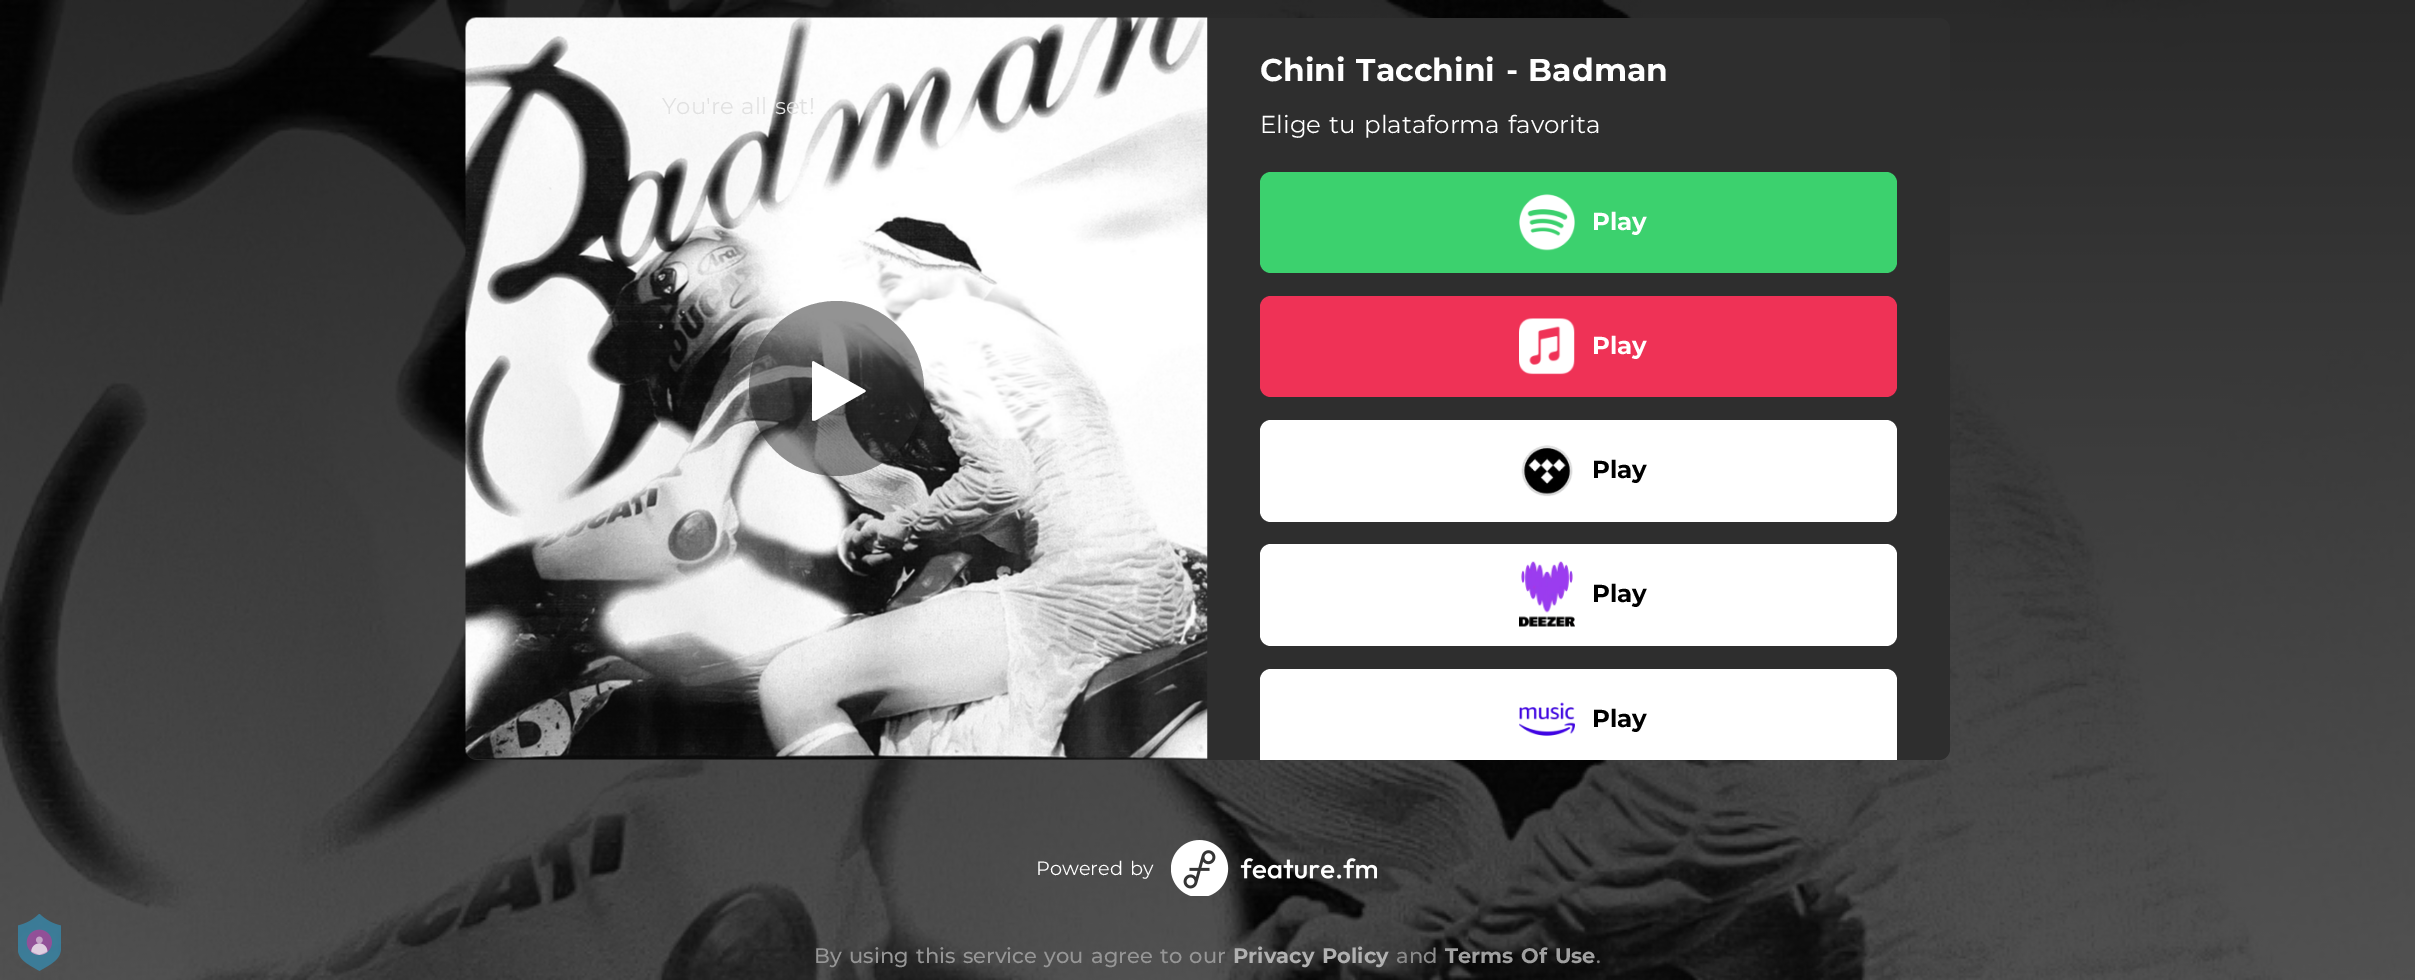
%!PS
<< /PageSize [2415 980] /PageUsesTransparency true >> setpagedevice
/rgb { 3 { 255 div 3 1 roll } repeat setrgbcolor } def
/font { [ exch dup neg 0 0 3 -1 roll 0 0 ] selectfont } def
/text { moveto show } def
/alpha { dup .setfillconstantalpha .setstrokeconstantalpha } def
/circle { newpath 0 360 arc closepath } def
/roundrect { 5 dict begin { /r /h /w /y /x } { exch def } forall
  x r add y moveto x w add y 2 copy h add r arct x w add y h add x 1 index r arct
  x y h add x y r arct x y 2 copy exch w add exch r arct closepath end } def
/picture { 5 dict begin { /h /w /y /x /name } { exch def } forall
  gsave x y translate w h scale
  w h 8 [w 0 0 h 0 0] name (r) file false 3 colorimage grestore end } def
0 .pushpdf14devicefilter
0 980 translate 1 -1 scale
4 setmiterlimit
255 255 255 rgb
0 0 2415 980 rectfill
(img_02.rgb) 0 0 2415 980 picture
(img_01.rgb) 18 914 43 57 picture
47 47 47 rgb
477 18 moveto 731 0 rlineto 0 742 rlineto -731 0 rlineto -6 0 -11 -5 -11 -11 rcurveto 0 -720 rlineto 0 -6 5 -11 11 -11 rcurveto closepath fill
(img_03.rgb) 465 17 743 743 picture
0.5 alpha
40 40 40 rgb
836.5 388.5 87.5 circle fill
1 alpha
255 255 255 rgb
865 392 moveto -42 24 rlineto -1 0 -9 7 -11 4 rcurveto 0 -58 rlineto 1 -1 rlineto 52 29 rlineto 1 1 rlineto -1 1 rlineto fill
46 46 46 rgb
1208 18 moveto 731 0 rlineto 6 0 11 5 11 11 rcurveto 0 720 rlineto 0 6 -5 11 -11 11 rcurveto -731 0 rlineto closepath fill
60 209 110 rgb
1260 172 637 101 11 roundrect fill
(img_04.rgb) 1519 194 56 57 picture
239 50 86 rgb
1260 296 637 101 11 roundrect fill
(img_05.rgb) 1519 318 56 57 picture
255 255 255 rgb
1260 420 637 102 11 roundrect fill
(img_06.rgb) 1521 445 52 52 picture
1260 544 637 102 11 roundrect fill
(img_07.rgb) 1519 561 56 66 picture
gsave
1208 18 moveto 731 0 rlineto 6 0 11 5 11 11 rcurveto 0 720 rlineto 0 6 -5 11 -11 11 rcurveto -731 0 rlineto closepath clip newpath
1260 669 637 101 11 roundrect fill
grestore
(img_08.rgb) 1519 702 56 34 picture
(img_09.rgb) 1171 840 206 56 picture
/Montserrat-Regular 22.75 font
225 225 225 rgb
662 114 moveto 1.75 0 32 (You're all set!) widthshow
/Montserrat-Bold 31.5 font
255 255 255 rgb
1260 81 moveto 1.75 0 32 (Chini Tacchini - Badman) widthshow
/Montserrat-Regular 24.5 font
1260 133 moveto 1.75 0 32 (Elige tu plataforma favorita) widthshow
/Montserrat-Bold 24.5 font
(Play) 1592 230 text
(Play) 1592 354 text
0 0 0 rgb
(Play) 1592 478 text
(Play) 1592 602 text
(Play) 1592 727 text
/Montserrat-Regular 19.25 font
255 255 255 rgb
1036 875 moveto 1.75 0 32 (Powered by) widthshow
/Montserrat-Medium 21 font
150 150 150 rgb
814 963 moveto 1.75 0 32 (By using this service you agree to our) widthshow
/Montserrat-Bold 21 font
177 177 177 rgb
1233 963 moveto 1.75 0 32 (Privacy Policy) widthshow
/Montserrat-Medium 21 font
139 139 139 rgb
(and) 1396 963 text
/Montserrat-Bold 21 font
160 160 160 rgb
1445 963 moveto 1.75 0 32 (Terms Of Use) widthshow
/Montserrat-Medium 21 font
128 128 128 rgb
(.) 1596 963 text
.poppdf14devicefilter showpage
